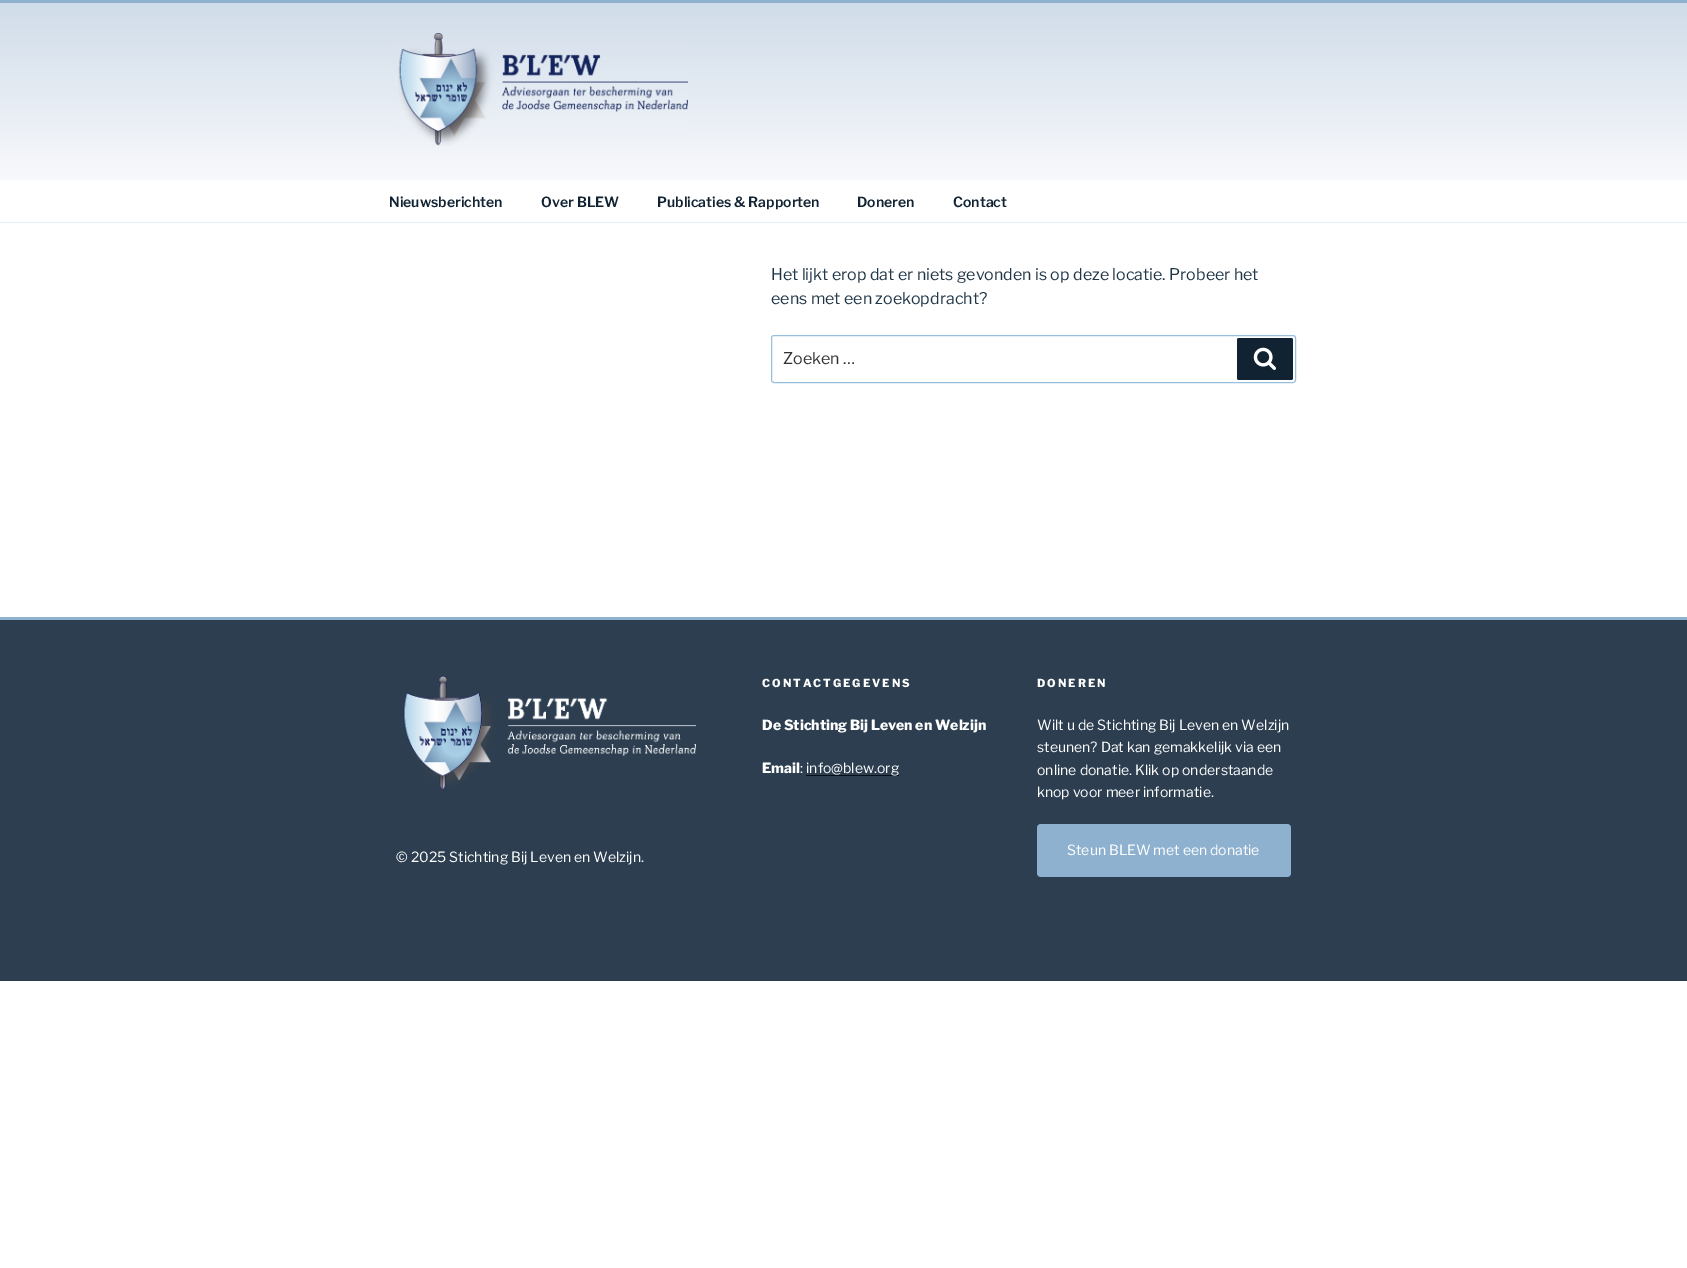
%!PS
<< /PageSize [1687 1268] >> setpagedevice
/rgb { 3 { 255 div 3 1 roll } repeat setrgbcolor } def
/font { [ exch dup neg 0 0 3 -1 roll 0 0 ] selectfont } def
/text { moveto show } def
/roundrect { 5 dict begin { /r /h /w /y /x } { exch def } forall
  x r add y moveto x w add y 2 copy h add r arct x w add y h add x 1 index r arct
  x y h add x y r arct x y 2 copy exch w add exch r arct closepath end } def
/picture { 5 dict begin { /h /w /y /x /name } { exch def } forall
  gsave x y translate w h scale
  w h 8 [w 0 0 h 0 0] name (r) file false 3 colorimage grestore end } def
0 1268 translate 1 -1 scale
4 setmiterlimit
255 255 255 rgb
0 0 1687 1268 rectfill
142 177 208 rgb
0 0 1687 3 rectfill
gsave 0 3 moveto 1687 0 rlineto 0 177 rlineto -1687 0 rlineto closepath clip newpath
<< /ShadingType 2 /ColorSpace /DeviceRGB /Coords [844 3 844 180] /Extend [true true] /Function << /FunctionType 2 /Domain [0 1] /C0 [0.816 0.863 0.914] /C1 [0.973 0.976 0.988] /N 1 >> >> shfill grestore
(img_01.rgb) 398 33 290 113 picture
228 238 246 rgb
0 222 1687 1 rectfill
152 191 221 rgb
771.5 335.5 524 47 2.5 roundrect stroke
17 35 50 rgb
1237 338 56 42 2 roundrect fill
(img_02.rgb) 1253 347 23 23 picture
44 62 80 rgb
0 620 1687 361 rectfill
142 177 208 rgb
0 617 1687 3 rectfill
8 16 23 rgb
806 775 93 1 rectfill
142 177 208 rgb
1037 824 254 53 4 roundrect fill
(img_03.rgb) 403 676 293 114 picture
/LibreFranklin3-Thin 14 font
17 35 50 rgb
(Nieuwsberichten) 389 207 text
(Over BLEW) 541 207 text
(Publicaties & Rapporten) 657 207 text
(Doneren) 857 207 text
(Contact) 953 207 text
/LibreFranklin-Thin 16 font
31 54 71 rgb
(Het lijkt erop dat er niets gevonden is op deze locatie. Probeer het) 771 280 text
(eens met een zoekopdracht?) 771 304 text
51 51 51 rgb
(Zoeken …) 783 364 text
/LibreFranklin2-Thin 11 font
255 255 255 rgb
762 687 moveto 2 0 (CONTACTGEGEVENS) ashow
/LibreFranklin2-Thin 14 font
(De Stichting Bij Leven en Welzijn) 762 730 text
(Email) 762 773 text
/LibreFranklin-Thin 14 font
(:) 800 773 text
(info@blew.org) 806 773 text
/LibreFranklin2-Thin 11 font
1037 687 moveto 2 0 (DONEREN) ashow
/LibreFranklin-Thin 14 font
(Wilt u de Stichting Bij Leven en Welzijn) 1037 730 text
(steunen? Dat kan gemakkelijk via een) 1037 752 text
(online donatie. Klik op onderstaande) 1037 775 text
(knop voor meer informatie.) 1037 797 text
(Steun BLEW met een donatie) 1067 855 text
(© 2025 Stichting Bij Leven en Welzijn.) 396 862 text
showpage
